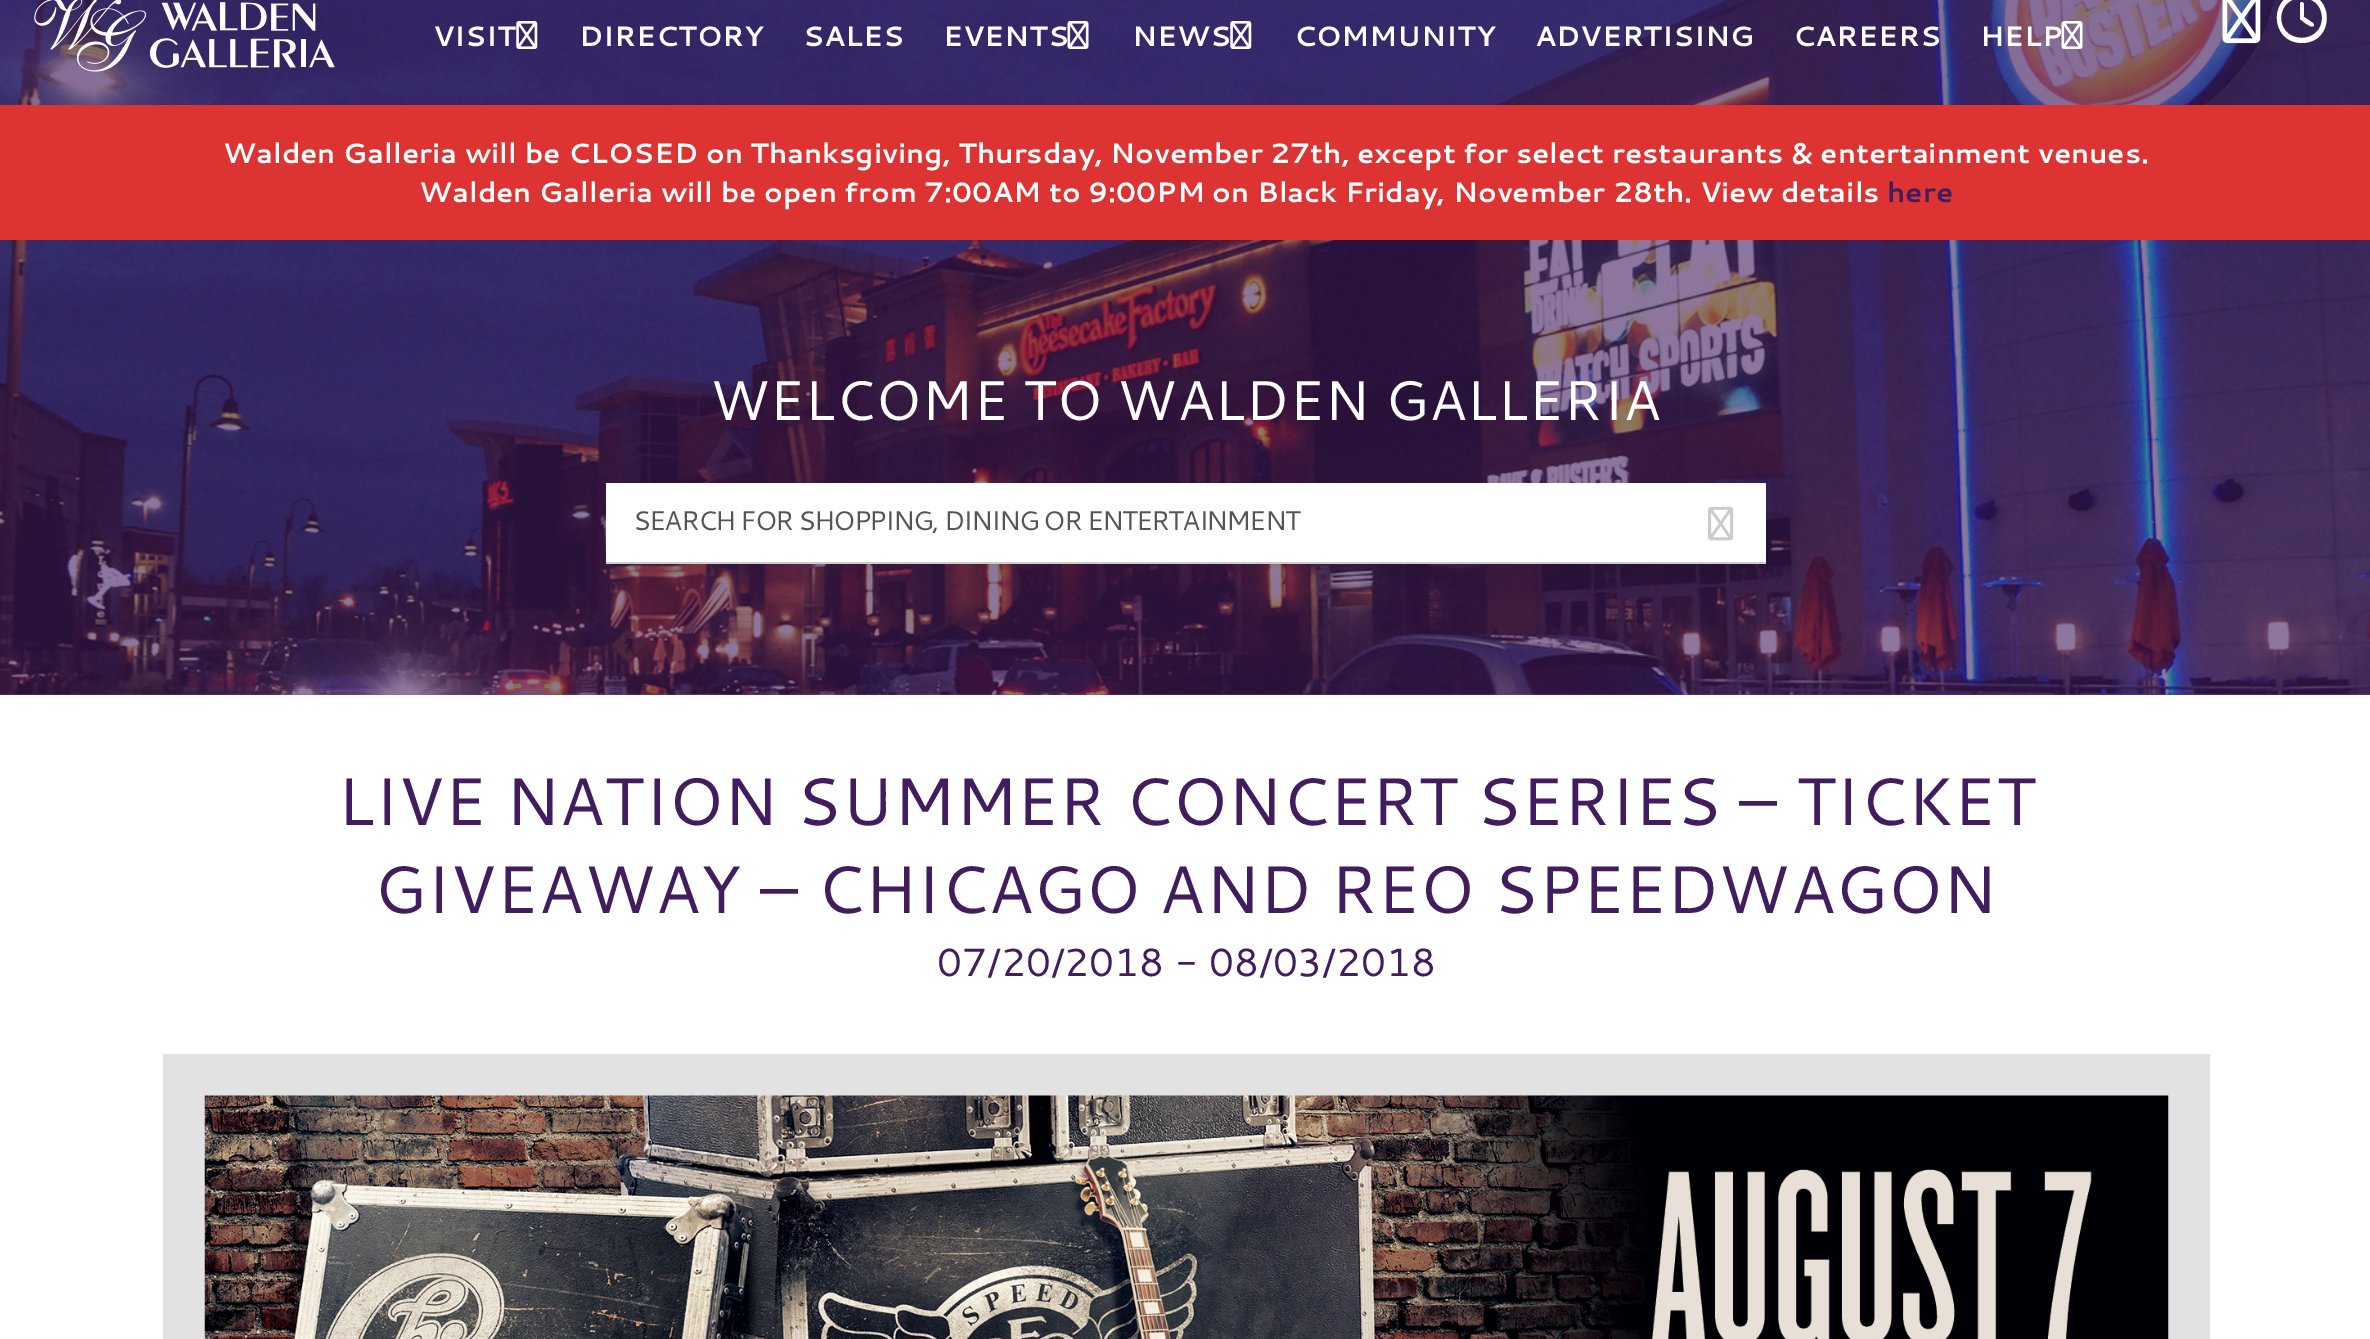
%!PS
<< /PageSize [2370 1339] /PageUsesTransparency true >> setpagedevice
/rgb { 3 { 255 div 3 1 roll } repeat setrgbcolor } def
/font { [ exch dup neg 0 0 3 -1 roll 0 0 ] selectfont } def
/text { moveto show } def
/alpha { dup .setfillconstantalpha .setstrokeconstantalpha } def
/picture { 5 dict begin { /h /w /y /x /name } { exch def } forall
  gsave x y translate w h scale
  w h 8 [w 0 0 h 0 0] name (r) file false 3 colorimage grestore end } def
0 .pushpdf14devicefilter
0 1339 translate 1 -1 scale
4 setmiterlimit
255 255 255 rgb
0 0 2370 1339 rectfill
(img_01.rgb) 0 0 2370 695 picture
0.1 alpha
65 28 94 rgb
0 0 2272 105 rectfill
1 alpha
(img_02.rgb) 34 0 301 72 picture
(img_03.rgb) 516 21 22 28 picture
(img_04.rgb) 1067 21 22 28 picture
(img_05.rgb) 1230 21 22 28 picture
(img_06.rgb) 2061 21 22 28 picture
(img_07.rgb) 2222 0 39 44 picture
255 255 255 rgb
2300 4 moveto 0 -2 3 -3 4 0 rcurveto 0 13 rlineto 9 6 rlineto 1 2 rlineto -1 4 -7 -1 -9 -2 rcurveto -5 -4 rlineto closepath 2302 -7 moveto 33 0 33 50 0 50 rcurveto -33 0 -34 -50 0 -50 rcurveto closepath 2281 18 moveto 1 27 41 26 41 0 rcurveto 0 -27 -40 -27 -41 0 rcurveto closepath fill
221 51 51 rgb
0 105 2370 135 rectfill
255 255 255 rgb
606 483 1160 79 rectfill
204 204 204 rgb
606 562 1160 2 rectfill
(img_08.rgb) 1708 506 26 35 picture
226 226 226 rgb
163 1054 2047 285 rectfill
(img_09.rgb) 204 1095 1965 244 picture
/Cantarell-Bold 28 font
255 255 255 rgb
(VISIT) 433 46 text
(DIRECTORY) 579 46 text
(SALES) 803 46 text
(EVENTS) 943 46 text
(NEWS) 1132 46 text
(COMMUNITY) 1294 46 text
(ADVERTISING) 1535 46 text
(CAREERS) 1793 46 text
(HELP) 1980 46 text
(Walden Galleria will be CLOSED on Thanksgiving, Thursday, November 27th, except for select restaurants & entertainment venues.) 223 163 text
(Walden Galleria will be open from 7:00AM to 9:00PM on Black Friday, November 28th. View details) 419 202 text
65 28 94 rgb
(here) 1887 202 text
/Cantarell-Regular 56 font
255 255 255 rgb
(WELCOME TO WALDEN GALLERIA) 710 420 text
/Cantarell-Regular 26.9 font
85 85 85 rgb
633 530 moveto -1.75 0 (SEARCH FOR SHOPPING, DINING OR ENTERTAINMENT) ashow
/Cantarell-Regular 67.2 font
65 28 94 rgb
(LIVE NATION SUMMER CONCERT SERIES – TICKET) 337 825 text
(GIVEAWAY – CHICAGO AND REO SPEEDWAGON) 374 913 text
/Cantarell-Regular 39.25 font
(07/20/2018 - 08/03/2018) 937 976 text
.poppdf14devicefilter showpage
